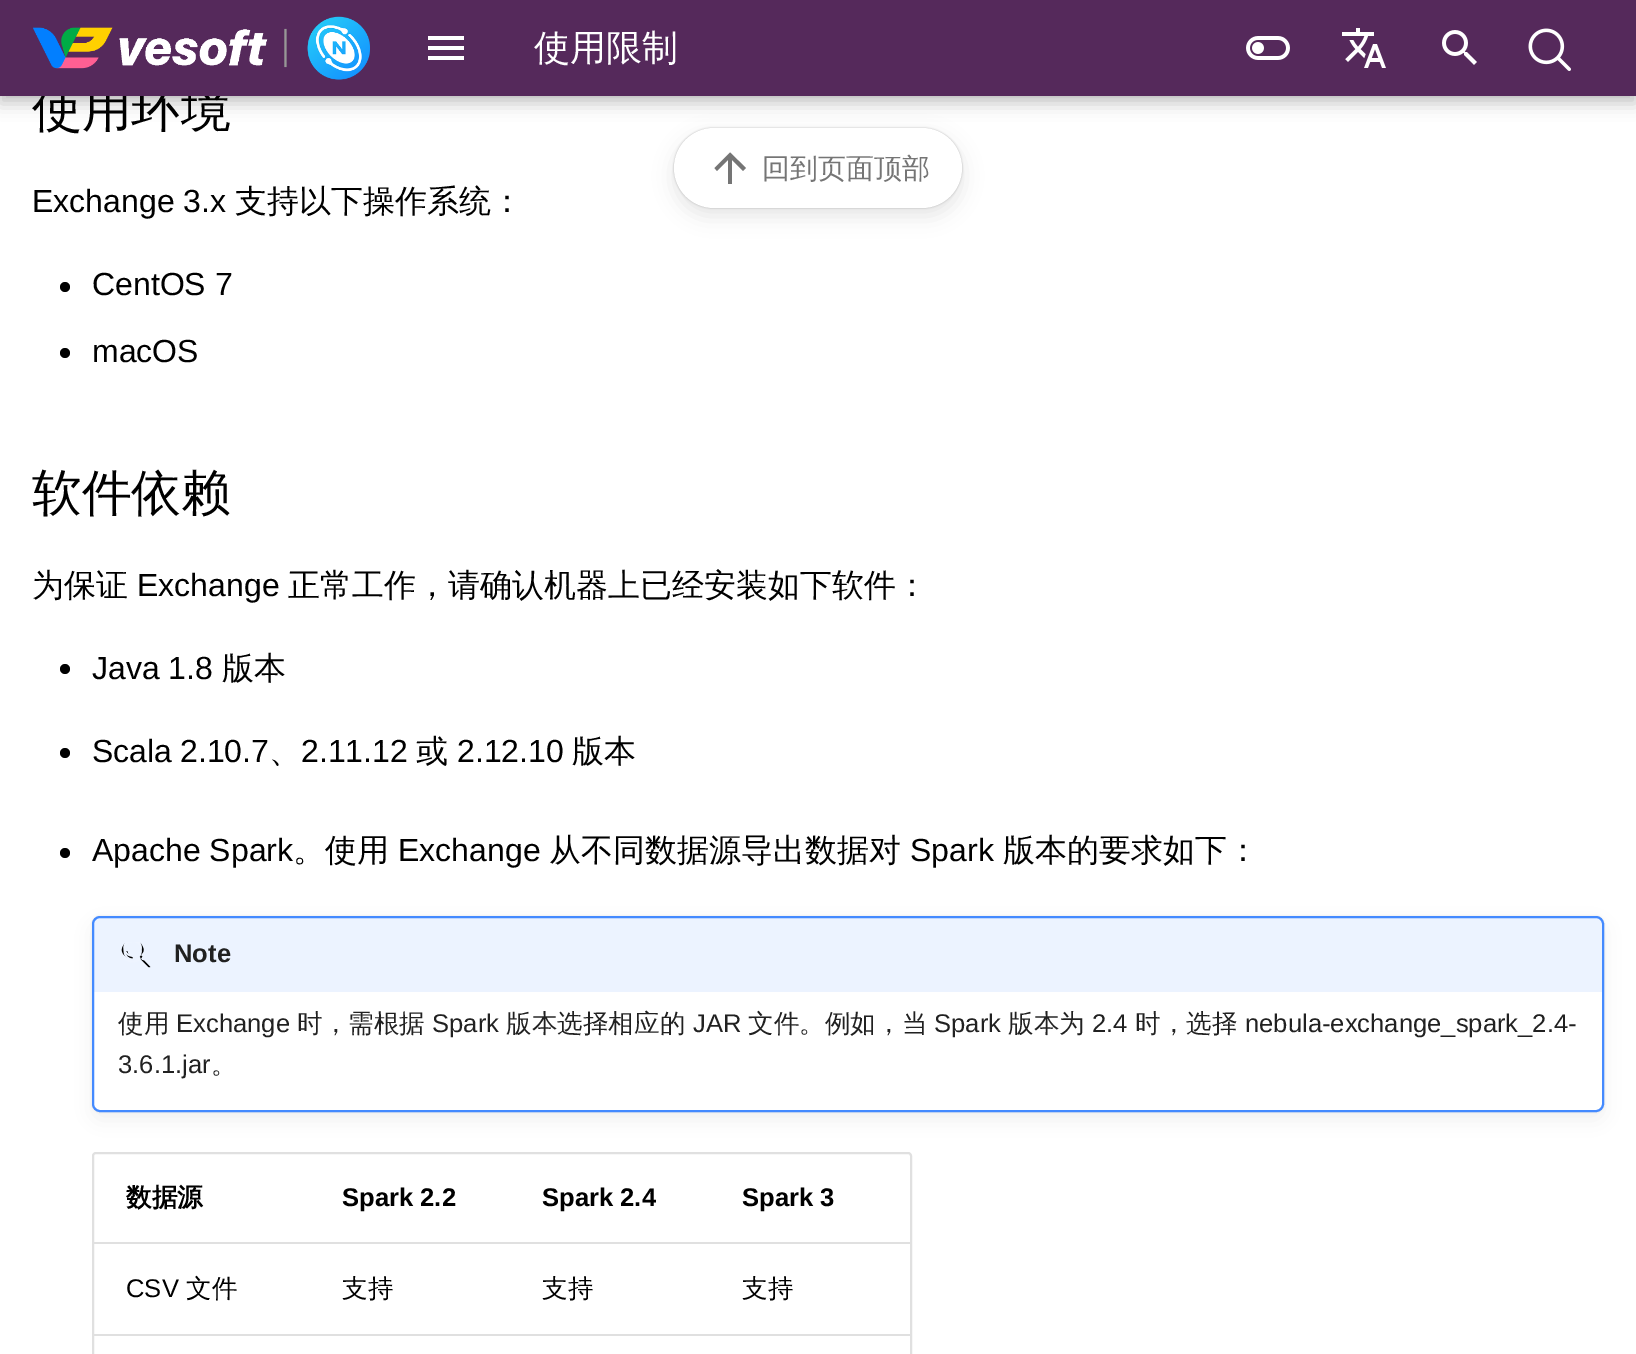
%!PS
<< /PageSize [1636 1354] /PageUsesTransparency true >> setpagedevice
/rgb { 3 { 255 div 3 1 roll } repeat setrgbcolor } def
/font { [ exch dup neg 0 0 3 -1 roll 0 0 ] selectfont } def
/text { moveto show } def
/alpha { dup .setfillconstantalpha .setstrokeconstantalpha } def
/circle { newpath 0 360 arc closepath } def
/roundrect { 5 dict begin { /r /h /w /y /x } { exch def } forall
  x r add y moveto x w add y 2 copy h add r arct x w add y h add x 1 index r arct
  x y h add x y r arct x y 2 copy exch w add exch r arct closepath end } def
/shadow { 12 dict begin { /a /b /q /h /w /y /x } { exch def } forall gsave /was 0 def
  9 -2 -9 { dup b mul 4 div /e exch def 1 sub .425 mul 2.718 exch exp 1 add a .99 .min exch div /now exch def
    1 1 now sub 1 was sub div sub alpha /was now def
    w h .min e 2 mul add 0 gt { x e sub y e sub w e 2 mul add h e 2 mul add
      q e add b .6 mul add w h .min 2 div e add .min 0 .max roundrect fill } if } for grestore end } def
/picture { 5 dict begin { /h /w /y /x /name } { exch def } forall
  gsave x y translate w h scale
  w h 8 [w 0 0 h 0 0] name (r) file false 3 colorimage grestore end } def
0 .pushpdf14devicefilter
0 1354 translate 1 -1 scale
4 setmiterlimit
255 255 255 rgb
0 0 1636 1354 rectfill
0 0 0 rgb
674 128 288 80 40 1 0.25 shadow
674 136 288 80 40 10 0.1 shadow
255 255 255 rgb
674 128 288 80 40 roundrect fill
0 0 0 rgb
0 8 1636 96 0 8 0.2 shadow
0 0 1636 96 0 4 0.1 shadow
65 287 5 circle fill
65 353 5 circle fill
65 669 5 circle fill
65 753 5 circle fill
65 853 5 circle fill
92 916 1512 196 8 1 0.1 shadow
92 924 1512 196 8 10 0.05 shadow
255 255 255 rgb
93 917 1510 194 7 roundrect gsave fill grestore
68 138 255 rgb
2 setlinewidth
stroke
0.1 alpha
98 918 moveto 1500 0 rlineto 2 0 4 2 4 4 rcurveto 0 70 rlineto -1508 0 rlineto 0 -70 rlineto 0 -2 2 -4 4 -4 rcurveto closepath fill
1 alpha
(img_07.rgb) 121 942 30 26 picture
224 224 224 rgb
93 1153 818 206 3 roundrect stroke
94 1242 816 2 rectfill
94 1334 816 2 rectfill
117 117 117 rgb
732 184 moveto -4 0 rlineto 0 -24 rlineto -11 11 rlineto -2.5 -3 rlineto 15.5 -15.5 rlineto 16 15.5 rlineto -3 3 rlineto -11 -11 rlineto closepath fill
/WenQuanYiZenHei-Medium 50 font
0 0 0 rgb
32 126 moveto -0.5 0 (使用环境) ashow
85 41 91 rgb
0 0 1636 96 rectfill
(img_05.rgb) 1442 30 35 35 picture
(img_04.rgb) 1342 28 44 40 picture
(img_03.rgb) 1246 36 44 24 picture
(img_02.rgb) 428 36 36 24 picture
(img_01.rgb) 33 16 337 64 picture
/WenQuanYiZenHei-Medium 36 font
255 255 255 rgb
(使用限制) 534 60 text
(img_06.rgb) 1528 28 43 43 picture
/LiberationSans-Regular 32 font
0 0 0 rgb
(Exchange 3.x) 32 212 text
/WenQuanYiZenHei-Medium 32 font
(支持以下操作系统：) 235 212 text
/LiberationSans-Regular 32 font
(CentOS 7) 92 295 text
(macOS) 92 362 text
/WenQuanYiZenHei-Medium 50 font
32 510 moveto -0.5 0 (软件依赖) ashow
/WenQuanYiZenHei-Medium 32 font
(为保证) 32 596 text
/LiberationSans-Regular 32 font
(Exchange) 137 596 text
/WenQuanYiZenHei-Medium 32 font
(正常工作，请确认机器上已经安装如下软件：) 288 596 text
/LiberationSans-Regular 32 font
(Java 1.8) 92 679 text
/WenQuanYiZenHei-Medium 32 font
(版本) 222 679 text
/LiberationSans-Regular 32 font
92 762 moveto -1 0 32 (Scala 2.10.7) widthshow
(2.11.12) 301 762 text
/WenQuanYiZenHei-Medium 32 font
(或) 416 762 text
/LiberationSans-Regular 32 font
(2.12.10) 457 762 text
/WenQuanYiZenHei-Medium 32 font
(版本) 572 762 text
(、) 269 762 text
/LiberationSans-Regular 32 font
(Apache Spark) 92 861 text
/WenQuanYiZenHei-Medium 32 font
(。使用) 293 861 text
/LiberationSans-Regular 32 font
(Exchange) 398 861 text
/WenQuanYiZenHei-Medium 32 font
(从不同数据源导出数据对) 549 861 text
/LiberationSans-Regular 32 font
(Spark) 910 861 text
/WenQuanYiZenHei-Medium 32 font
(版本的要求如下：) 1003 861 text
/LiberationSans-Bold 25.6 font
33 33 33 rgb
(Note) 174 962 text
/WenQuanYiZenHei-Medium 25.6 font
(使用) 118 1032 text
/LiberationSans-Regular 25.6 font
(Exchange) 176 1032 text
/WenQuanYiZenHei-Medium 25.6 font
(时，需根据) 297 1032 text
/LiberationSans-Regular 25.6 font
(Spark) 432 1032 text
/WenQuanYiZenHei-Medium 25.6 font
(版本选择相应的) 506 1032 text
/LiberationSans-Regular 25.6 font
(JAR) 693 1032 text
/WenQuanYiZenHei-Medium 25.6 font
(文件。例如，当) 748 1032 text
/LiberationSans-Regular 25.6 font
(Spark) 934 1032 text
/WenQuanYiZenHei-Medium 25.6 font
(版本为) 1008 1032 text
/LiberationSans-Regular 25.6 font
(2.4) 1092 1032 text
/WenQuanYiZenHei-Medium 25.6 font
(时，选择) 1135 1032 text
/LiberationSans-Regular 25.6 font
(nebula-exchange_spark_2.4-) 1245 1032 text
(3.6.1.jar) 118 1073 text
/WenQuanYiZenHei-Medium 25.6 font
(。) 211 1073 text
/WenQuanYiZenHei-Bold 25.6 font
0 0 0 rgb
(数据源) 126 1206 text
/LiberationSans-Bold 25.6 font
(Spark 2.2) 342 1206 text
(Spark 2.4) 542 1206 text
(Spark 3) 742 1206 text
/LiberationSans-Regular 25.6 font
(CSV) 126 1297 text
/WenQuanYiZenHei-Medium 25.6 font
(文件) 186 1297 text
(支持) 342 1297 text
(支持) 542 1297 text
(支持) 742 1297 text
/WenQuanYiZenHei-Medium 28 font
117 117 117 rgb
(回到页面顶部) 762 178 text
.poppdf14devicefilter showpage
